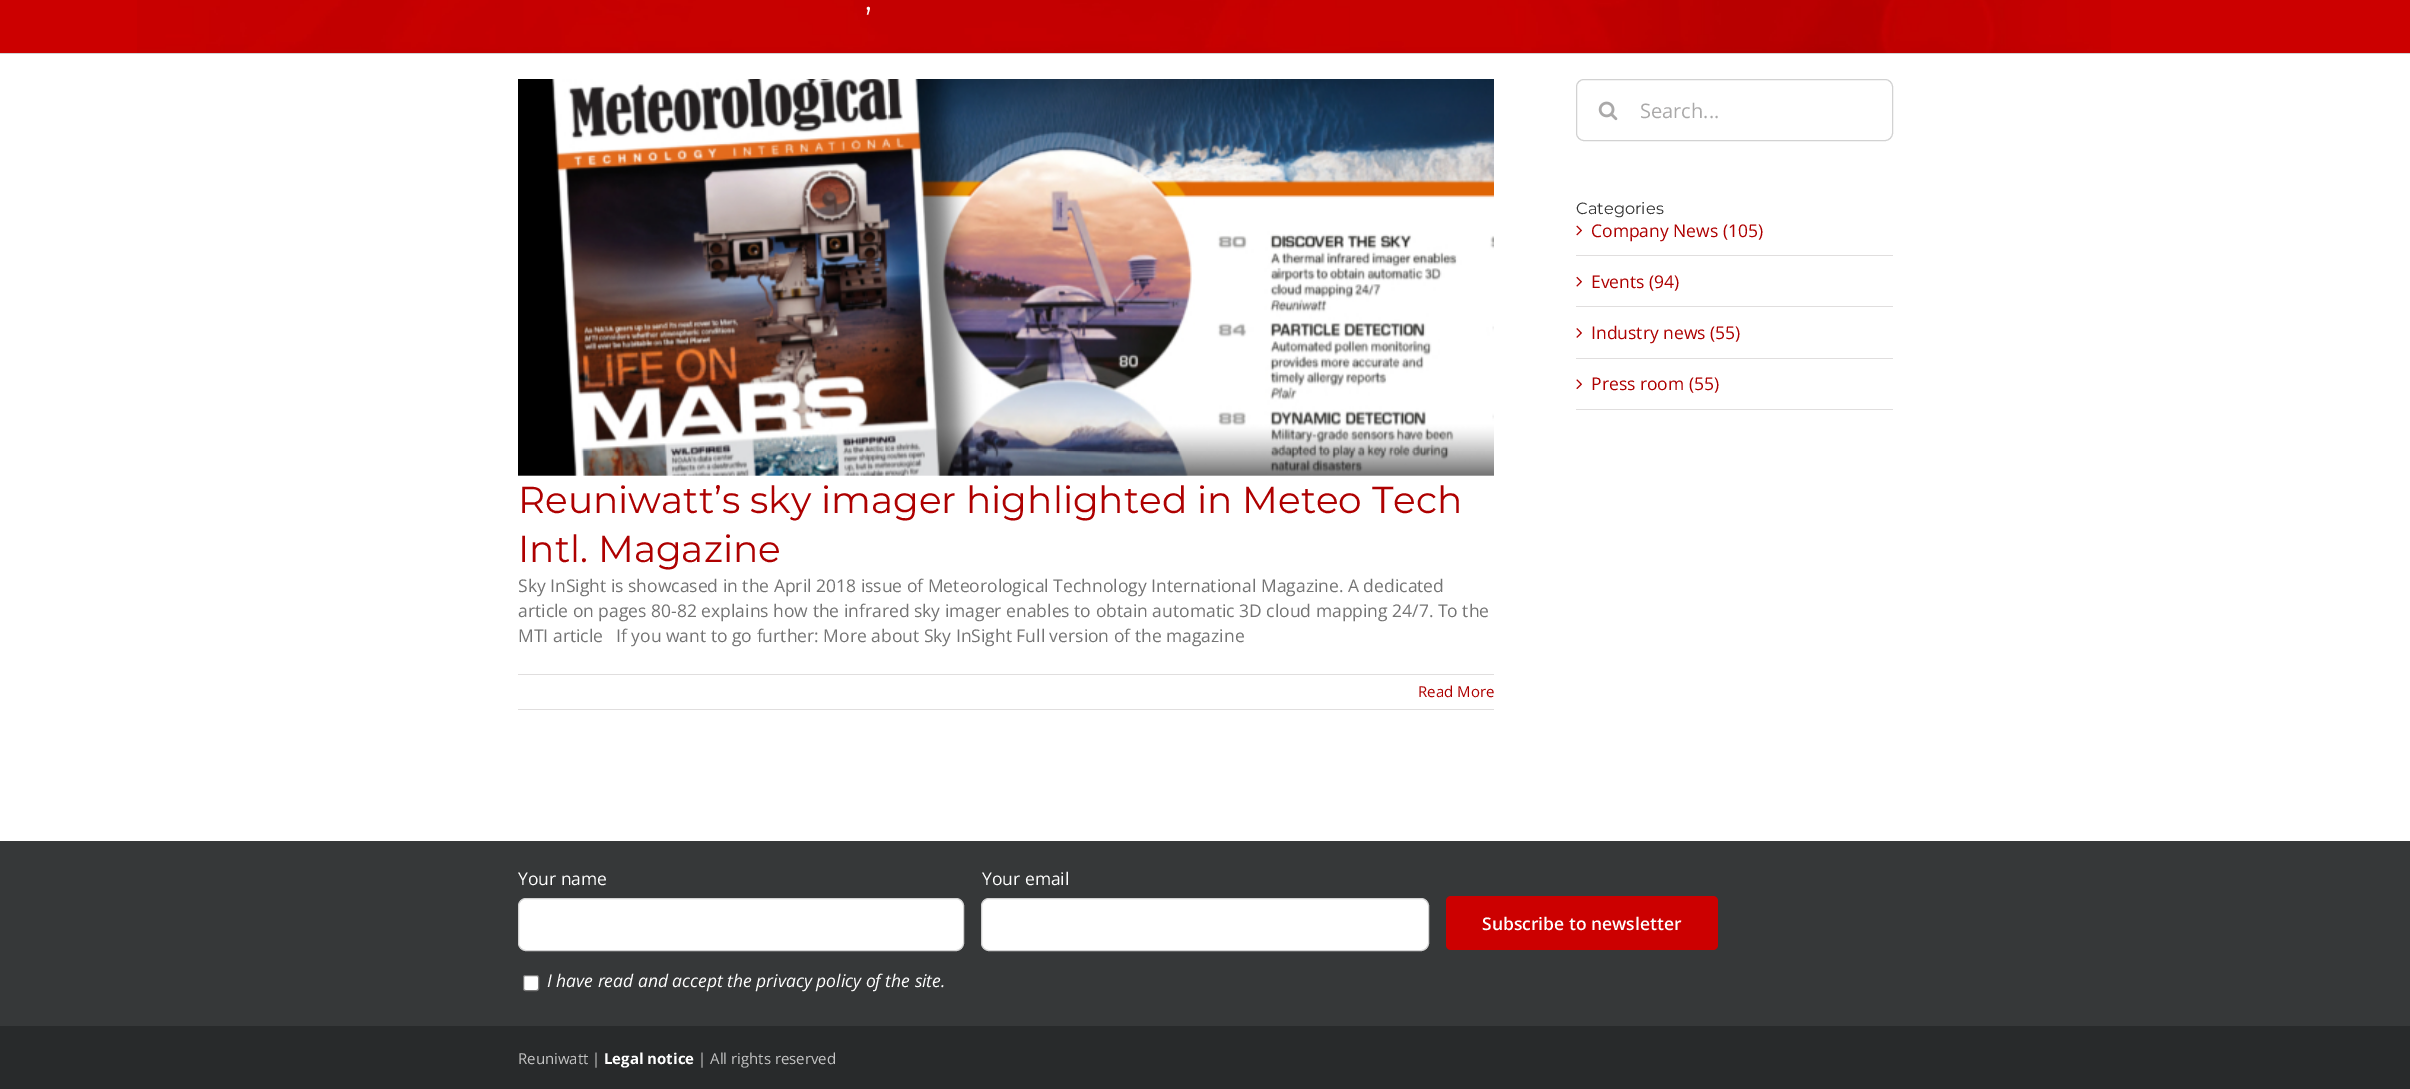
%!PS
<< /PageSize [2410 1089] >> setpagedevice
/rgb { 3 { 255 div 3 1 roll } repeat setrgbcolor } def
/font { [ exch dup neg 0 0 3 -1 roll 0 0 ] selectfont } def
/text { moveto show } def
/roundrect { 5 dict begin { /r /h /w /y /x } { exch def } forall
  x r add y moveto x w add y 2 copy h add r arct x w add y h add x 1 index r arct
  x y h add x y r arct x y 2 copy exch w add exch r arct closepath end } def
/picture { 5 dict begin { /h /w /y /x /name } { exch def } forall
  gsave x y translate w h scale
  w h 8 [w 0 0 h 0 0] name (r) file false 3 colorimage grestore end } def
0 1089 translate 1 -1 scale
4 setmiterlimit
255 255 255 rgb
0 0 2410 1089 rectfill
204 0 0 rgb
0 0 2410 53 rectfill
(img_01.rgb) 137 0 1974 53 picture
210 211 212 rgb
0 53 2410 1 rectfill
210 210 210 rgb
1576.5 79.5 316 61 7.5 roundrect stroke
(img_02.rgb) 1598 101 20 20 picture
224 222 222 rgb
1576 255 317 1 rectfill
(img_03.rgb) 1576 225 6 11 picture
1576 306 317 1 rectfill
(img_04.rgb) 1576 276 6 11 picture
1576 358 317 1 rectfill
(img_05.rgb) 1576 328 6 10 picture
1576 409 317 1 rectfill
(img_06.rgb) 1576 379 6 10 picture
(img_07.rgb) 518 79 976 397 picture
518 674 976 1 rectfill
518 709 976 1 rectfill
54 56 57 rgb
0 841 2410 185 rectfill
255 255 255 rgb
518.5 898.5 445 52 7.5 roundrect gsave fill grestore
210 210 210 rgb
stroke
255 255 255 rgb
981.5 898.5 447 52 7.5 roundrect gsave fill grestore
210 210 210 rgb
stroke
204 0 0 rgb
1446 896 272 54 5 roundrect fill
255 255 255 rgb
523.5 975.5 15 15 2 roundrect gsave fill grestore
118 118 118 rgb
stroke
40 42 43 rgb
0 1026 2410 63 rectfill
/Montserrat-Thin 32 font
255 255 255 rgb
(,) 865 10 text
/OpenSans-Regular 20 font
170 169 169 rgb
(Search...) 1640 118 text
/Montserrat-Thin 16.25 font
51 51 51 rgb
(Categories) 1576 214 text
/OpenSans-Regular 17.5 font
174 0 0 rgb
(Company News \(105\)) 1591 237 text
(Events \(94\)) 1591 288 text
(Industry news \(55\)) 1591 339 text
(Press room \(55\)) 1591 390 text
/Montserrat-Thin 37.5 font
(Reuniwatt’s sky imager highlighted in Meteo Tech) 518 513 text
(Intl. Magazine) 518 562 text
/OpenSans-Regular 17.5 font
116 116 116 rgb
(Sky InSight is showcased in the April 2018 issue of Meteorological Technology International Magazine. A dedicated) 518 592 text
(article on pages 80-82 explains how the infrared sky imager enables to obtain automatic 3D cloud mapping 24/7. To the) 518 617 text
(MTI article) 518 642 text
(If you want to go further: More about Sky InSight Full version of the magazine) 616 642 text
/OpenSans-Regular 15 font
174 0 0 rgb
(Read More) 1418 697 text
/OpenSans-Regular 17.5 font
255 255 255 rgb
(Your name) 518 885 text
(Your email) 982 885 text
/OpenSans-SemiBold 17.5 font
(Subscribe to newsletter) 1482 930 text
/OpenSans-Italic 17.5 font
(I have read and accept the privacy policy of the site.) 547 987 text
/OpenSans-Regular 15 font
196 196 196 rgb
(Reuniwatt |) 518 1064 text
/OpenSans-Bold 15 font
255 255 255 rgb
(Legal notice) 604 1064 text
/OpenSans-Regular 15 font
196 196 196 rgb
(| All rights reserved) 698 1064 text
showpage
